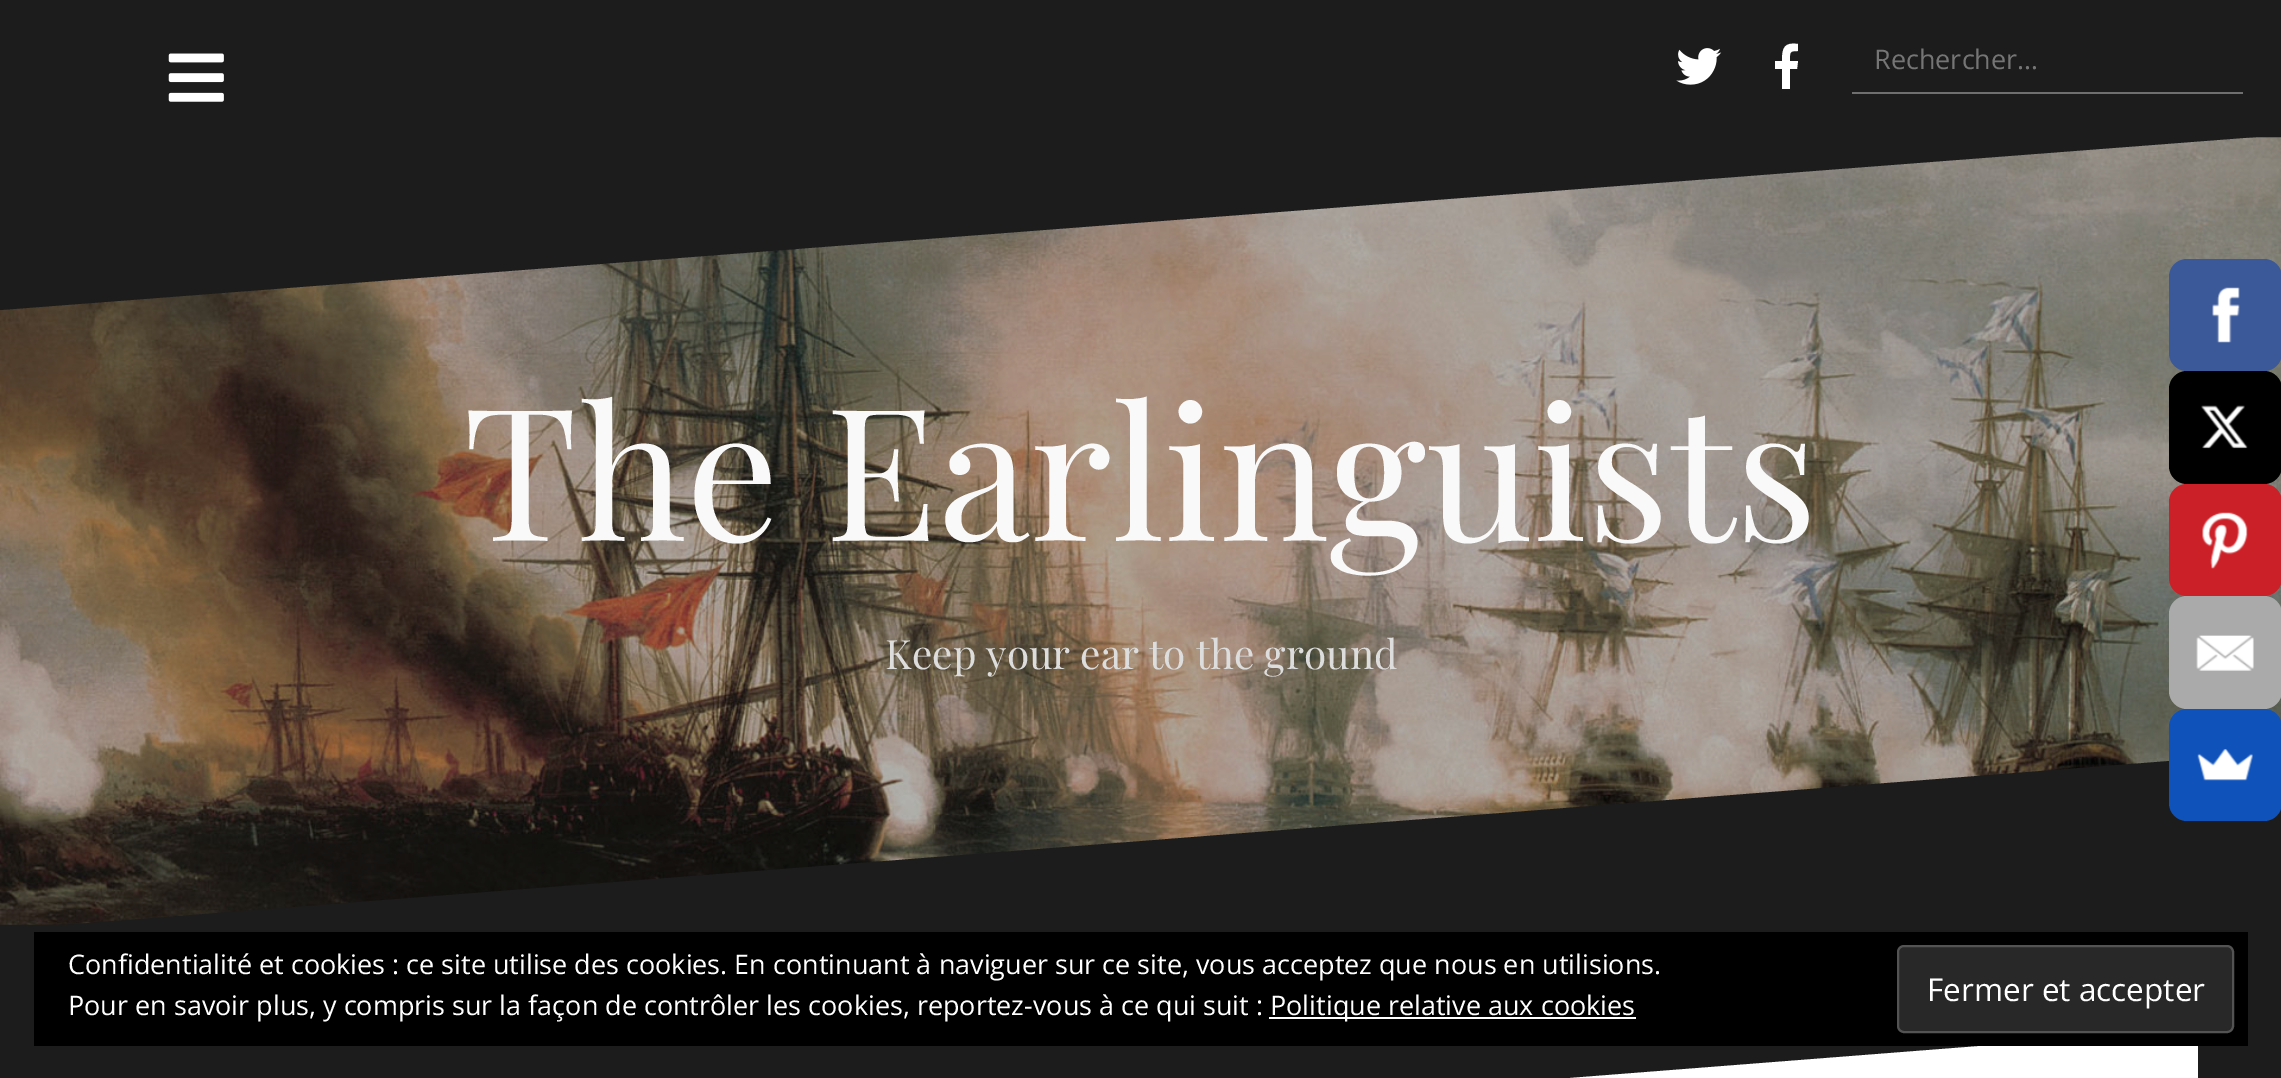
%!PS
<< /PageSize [2281 1078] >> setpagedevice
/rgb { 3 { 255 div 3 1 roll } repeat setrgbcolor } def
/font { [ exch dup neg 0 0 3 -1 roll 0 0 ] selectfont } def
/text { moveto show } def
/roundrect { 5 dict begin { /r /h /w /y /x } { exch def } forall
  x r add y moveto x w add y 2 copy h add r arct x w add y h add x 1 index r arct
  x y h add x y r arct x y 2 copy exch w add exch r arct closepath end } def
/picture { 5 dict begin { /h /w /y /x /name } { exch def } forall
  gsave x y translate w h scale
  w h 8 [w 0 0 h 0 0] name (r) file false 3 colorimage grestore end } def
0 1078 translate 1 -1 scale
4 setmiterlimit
28 28 28 rgb
0 0 2281 1078 rectfill
(img_01.rgb) 168 53 56 49 picture
(img_02.rgb) 1676 48 46 37 picture
255 255 255 rgb
1782 89 moveto 0 -20 rlineto -7 0 rlineto 0 -8 rlineto 7 0 rlineto 0 -13 2 -19 16 -17 rcurveto 0 7 rlineto -9 0 -8 1 -8 10 rcurveto 8 0 rlineto -1 8 rlineto -7 0 rlineto 0 20 rlineto closepath fill
111 111 111 rgb
1852 92 391 2 rectfill
(img_03.rgb) 0 137 2281 788 picture
28 28 28 rgb
0 310 moveto 0 -175 rlineto 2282 0 rlineto fill
gsave
0 749 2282 180 rectclip
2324 749 moveto 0 181 rlineto -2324 0 rlineto fill
grestore
gsave
83 1026 2115 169 rectclip
255 255 255 rgb
2237 1026 moveto 0 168 rlineto -2154 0 rlineto fill
grestore
59 89 152 rgb
2169 259 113 112 18 roundrect fill
(img_04.rgb) 2212 287 28 56 picture
0 0 0 rgb
2169 371 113 113 18 roundrect fill
(img_05.rgb) 2201 405 47 44 picture
203 32 39 rgb
2169 484 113 112 18 roundrect fill
(img_06.rgb) 2202 512 46 57 picture
170 170 170 rgb
2169 596 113 113 18 roundrect fill
(img_07.rgb) 2196 635 58 36 picture
15 82 186 rgb
2169 709 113 112 18 roundrect fill
(img_08.rgb) 2197 749 56 32 picture
0 0 0 rgb
34 932 2214 114 rectfill
255 255 255 rgb
1269 1017 367 2 rectfill
40 40 40 rgb
1898 946 335 86 6 roundrect gsave fill grestore
83 83 83 rgb
2 setlinewidth
stroke
/OpenSans-Regular 27 font
117 117 117 rgb
(Rechercher…) 1874 69 text
/PlayfairDisplay-Regular 184.5 font
249 249 249 rgb
(The Earlinguists) 463 541 text
/PlayfairDisplay-Regular 40.5 font
221 221 221 rgb
(Keep your ear to the ground) 885 669 text
/OpenSans-Regular 27 font
255 255 255 rgb
(Confidentialité et cookies : ce site utilise des cookies. En continuant à naviguer sur ce site, vous acceptez que nous en utilisions.) 68 974 text
(Pour en savoir plus, y compris sur la façon de contrôler les cookies, reportez-vous à ce qui suit :) 68 1015 text
(Politique relative aux cookies) 1270 1015 text
/OpenSans-Regular 31.5 font
(Fermer et accepter) 1927 1001 text
showpage
